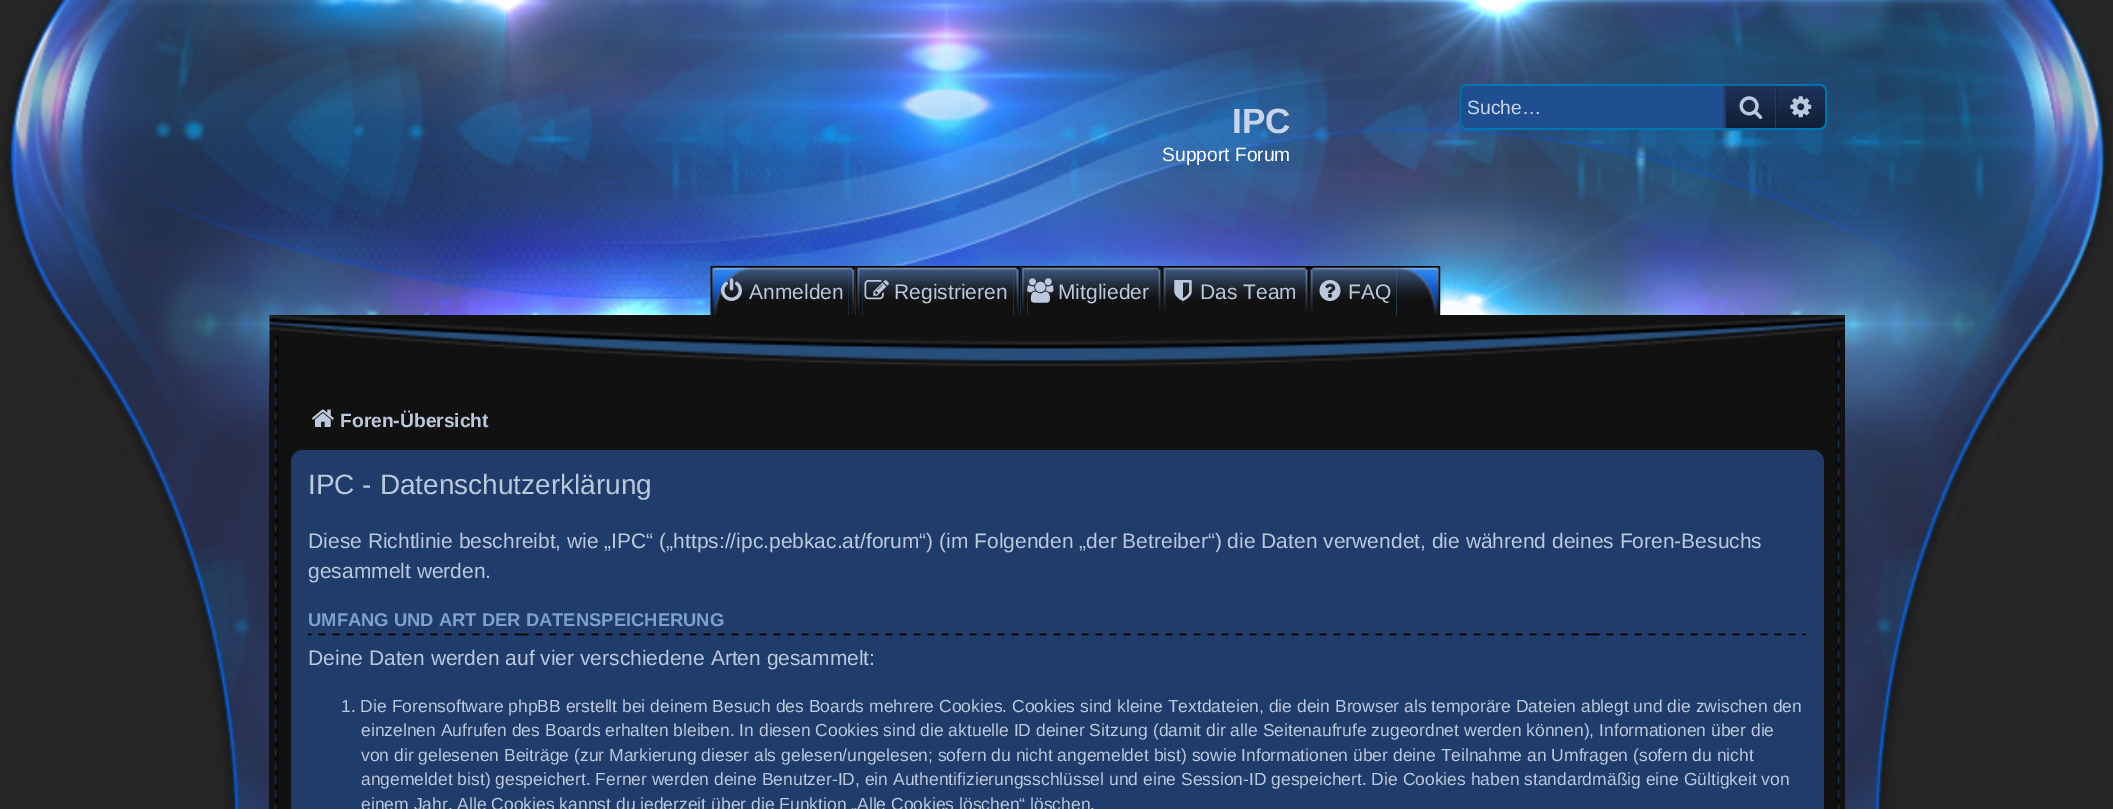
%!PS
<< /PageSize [2113 809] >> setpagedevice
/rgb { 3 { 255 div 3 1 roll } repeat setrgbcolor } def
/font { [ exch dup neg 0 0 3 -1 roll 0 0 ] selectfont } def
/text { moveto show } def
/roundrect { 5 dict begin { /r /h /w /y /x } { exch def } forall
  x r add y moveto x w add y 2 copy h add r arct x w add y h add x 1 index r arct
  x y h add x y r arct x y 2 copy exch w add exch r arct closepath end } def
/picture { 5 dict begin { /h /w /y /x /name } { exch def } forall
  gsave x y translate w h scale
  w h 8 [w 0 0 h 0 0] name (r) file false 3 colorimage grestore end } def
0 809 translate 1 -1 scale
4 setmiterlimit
37 37 37 rgb
0 0 2113 809 rectfill
(img_01.rgb) 0 0 2111 809 picture
0 117 176 rgb
2 setlinewidth
1461 85 365 44 6 roundrect stroke
31 79 144 rgb
1468 86 moveto 256 0 rlineto 0 42 rlineto -256 0 rlineto -4 0 -7 -3 -7 -7 rcurveto 0 -28 rlineto 0 -4 3 -7 7 -7 rcurveto closepath fill
(img_02.rgb) 1723 85 54 43 picture
31 60 107 rgb
1775 86 1 42 rectfill
1724 86 2 42 rectfill
(img_03.rgb) 1739 96 24 23 picture
16 29 51 rgb
1776 86 moveto 42 0 rlineto 4 0 7 3 7 7 rcurveto 0 28 rlineto 0 4 -3 7 -7 7 rcurveto -42 0 rlineto closepath fill
(img_04.rgb) 1776 85 50 43 picture
(img_05.rgb) 1790 96 22 22 picture
(img_06.rgb) 754 266 95 49 picture
(img_07.rgb) 710 266 44 49 picture
(img_08.rgb) 721 278 21 23 picture
(img_09.rgb) 848 266 8 49 picture
(img_10.rgb) 862 266 152 49 picture
(img_11.rgb) 855 266 8 49 picture
(img_12.rgb) 864 280 25 20 picture
(img_13.rgb) 1013 266 8 49 picture
(img_14.rgb) 1027 266 128 49 picture
(img_15.rgb) 1020 266 8 49 picture
(img_16.rgb) 1027 278 27 25 picture
(img_17.rgb) 1155 266 7 49 picture
(img_18.rgb) 1169 266 133 49 picture
(img_19.rgb) 1162 266 7 49 picture
(img_20.rgb) 1174 280 18 21 picture
(img_21.rgb) 1302 266 7 49 picture
(img_22.rgb) 1316 266 81 49 picture
(img_23.rgb) 1309 266 7 49 picture
(img_24.rgb) 1319 280 22 21 picture
(img_25.rgb) 1396 266 45 49 picture
17 17 17 rgb
1844 315 1 68 rectfill
(img_26.rgb) 269 315 1576 68 picture
269 383 1576 426 rectfill
(img_27.rgb) 274 383 5 426 picture
(img_28.rgb) 311 409 23 18 picture
(img_29.rgb) 1836 383 4 426 picture
31 60 107 rgb
291 450 1533 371 12 roundrect fill
(img_30.rgb) 308 631 1498 5 picture
/LiberationSans-Bold 35 font
200 213 233 rgb
(IPC) 1232 133 text
/LiberationSans-Regular 19.25 font
255 255 255 rgb
(Support Forum) 1162 161 text
200 213 233 rgb
(Suche…) 1467 114 text
/LiberationSans-Regular 21 font
188 201 221 rgb
(Anmelden) 749 299 text
(Registrieren) 894 299 text
(Mitglieder) 1058 299 text
(Das Team) 1200 299 text
(FAQ) 1348 299 text
/LiberationSans-Bold 19.25 font
(Foren-Übersicht) 340 427 text
/LiberationSans-Regular 28 font
(IPC - Datenschutzerklärung) 308 494 text
/LiberationSans-Regular 21 font
(Diese Richtlinie beschreibt, wie „IPC“ \(„https://ipc.pebkac.at/forum“\) \(im Folgenden „der Betreiber“\) die Daten verwendet, die während deines Foren-Besuchs) 308 548 text
(gesammelt werden.) 308 578 text
/LiberationSans-Bold 18.4 font
126 161 201 rgb
(UMFANG UND ART DER DATENSPEICHERUNG) 308 626 text
/LiberationSans-Regular 21 font
188 201 221 rgb
(Deine Daten werden auf vier verschiedene Arten gesammelt:) 308 665 text
/LiberationSans-Regular 17.5 font
(1. Die Forensoftware phpBB erstellt bei deinem Besuch des Boards mehrere Cookies. Cookies sind kleine Textdateien, die dein Browser als temporäre Dateien ablegt und die zwischen den) 341 712 text
(einzelnen Aufrufen des Boards erhalten bleiben. In diesen Cookies sind die aktuelle ID deiner Sitzung \(damit dir alle Seitenaufrufe zugeordnet werden können\), Informationen über die) 361 736 text
(von dir gelesenen Beiträge \(zur Markierung dieser als gelesen/ungelesen; sofern du nicht angemeldet bist\) sowie Informationen über deine Teilnahme an Umfragen \(sofern du nicht) 361 761 text
(angemeldet bist\) gespeichert. Ferner werden deine Benutzer-ID, ein Authentifizierungsschlüssel und eine Session-ID gespeichert. Die Cookies haben standardmäßig eine Gültigkeit von) 361 785 text
(einem Jahr. Alle Cookies kannst du jederzeit über die Funktion „Alle Cookies löschen“ löschen.) 361 810 text
showpage
